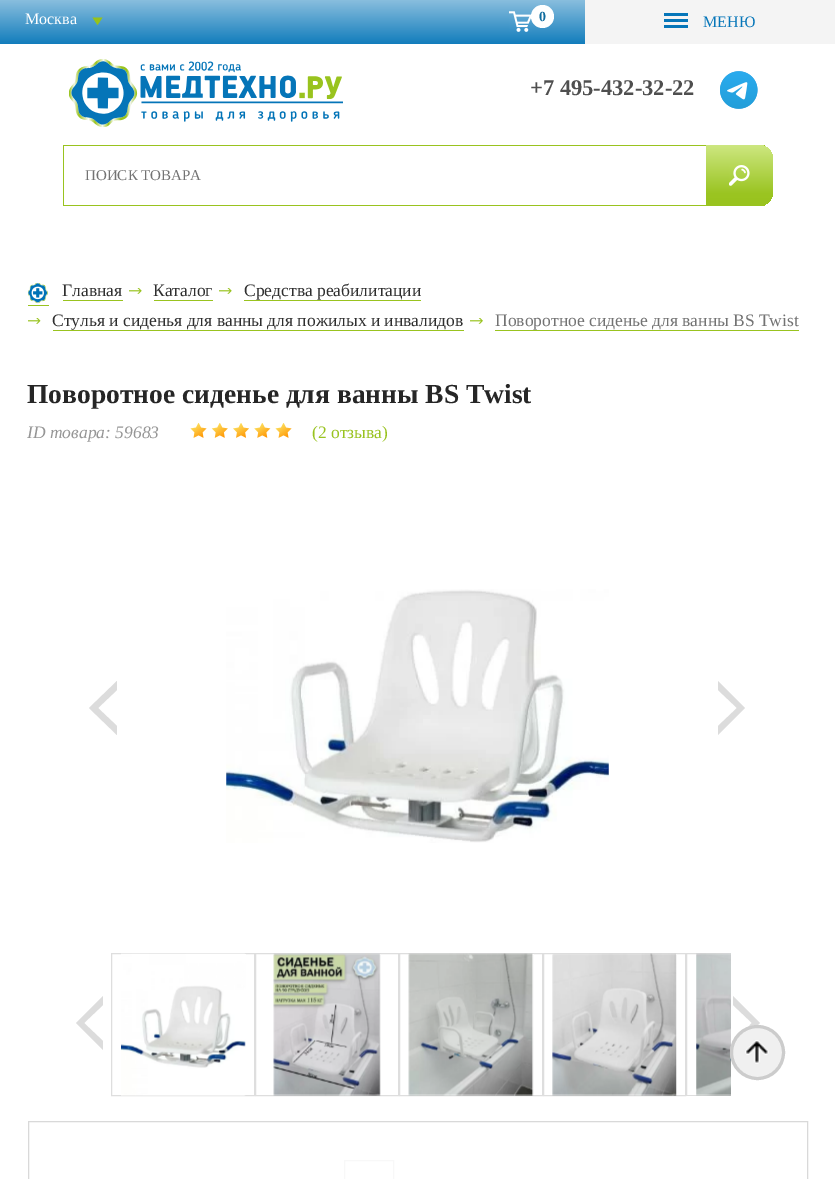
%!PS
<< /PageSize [835 1179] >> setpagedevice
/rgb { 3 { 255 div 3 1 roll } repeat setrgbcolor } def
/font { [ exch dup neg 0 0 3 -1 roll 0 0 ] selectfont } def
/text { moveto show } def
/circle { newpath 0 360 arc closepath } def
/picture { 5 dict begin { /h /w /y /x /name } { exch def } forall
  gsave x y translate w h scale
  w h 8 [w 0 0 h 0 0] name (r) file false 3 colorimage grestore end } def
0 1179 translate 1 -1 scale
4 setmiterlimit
255 255 255 rgb
0 0 835 1179 rectfill
gsave 0 0 moveto 351 0 rlineto 0 44 rlineto -351 0 rlineto closepath clip newpath
<< /ShadingType 2 /ColorSpace /DeviceRGB /Coords [176 0 176 44] /Extend [true true] /Function << /FunctionType 2 /Domain [0 1] /C0 [0.537 0.745 0.871] /C1 [0.071 0.49 0.737] /N 1 >> >> shfill grestore
gsave 351 0 moveto 117 0 rlineto 0 44 rlineto -117 0 rlineto closepath clip newpath
<< /ShadingType 2 /ColorSpace /DeviceRGB /Coords [409 0 409 44] /Extend [true true] /Function << /FunctionType 2 /Domain [0 1] /C0 [0.537 0.745 0.871] /C1 [0.071 0.49 0.737] /N 1 >> >> shfill grestore
gsave 468 0 moveto 117 0 rlineto 0 44 rlineto -117 0 rlineto closepath clip newpath
<< /ShadingType 2 /ColorSpace /DeviceRGB /Coords [526 0 526 44] /Extend [true true] /Function << /FunctionType 2 /Domain [0 1] /C0 [0.537 0.745 0.871] /C1 [0.071 0.49 0.737] /N 1 >> >> shfill grestore
(img_01.rgb) 509 11 23 21 picture
542.5 16.5 11.5 circle fill
244 244 244 rgb
585 0 250 44 rectfill
6 118 185 rgb
664 13 24 3 rectfill
664 19 24 3 rectfill
664 25 24 3 rectfill
151 194 26 rgb
92.5 17.5 moveto 10 0 rlineto -5 7.5 rlineto closepath fill
(img_02.rgb) 720 71 38 38 picture
(img_03.rgb) 69 59 274 68 picture
153 195 31 rgb
28 305 21 1 rectfill
63 300 60 1 rectfill
(img_04.rgb) 28 283 20 21 picture
(img_05.rgb) 129 288 13 6 picture
154 300 59 1 rectfill
(img_05.rgb) 219 288 13 6 picture
244 300 177 1 rectfill
(img_06.rgb) 28 318 13 6 picture
53 330 411 1 rectfill
(img_07.rgb) 470 318 13 6 picture
495 330 304 1 rectfill
(img_08.rgb) 190 423 17 15 picture
(img_09.rgb) 211 423 17 15 picture
(img_10.rgb) 233 423 16 15 picture
(img_11.rgb) 254 423 17 15 picture
(img_08.rgb) 275 423 17 15 picture
220 220 220 rgb
89 708 moveto 28 -27 rlineto 0 9 rlineto -19 18 rlineto 19 18 rlineto 0 9 rlineto closepath eofill
(img_12.rgb) 226 589 383 254 picture
745 708 moveto -27 -27 rlineto 0 9 rlineto 19 18 rlineto -19 18 rlineto 0 9 rlineto closepath eofill
222 222 222 rgb
111.5 953.5 143 142 rectstroke
(img_13.rgb) 121 953 125 143 picture
255.5 953.5 143 142 rectstroke
(img_14.rgb) 273 953 108 143 picture
399.5 953.5 143 142 rectstroke
(img_15.rgb) 408 953 126 143 picture
543.5 953.5 142 142 rectstroke
(img_16.rgb) 552 953 125 143 picture
gsave
74 953 687 143 rectclip
686.5 953.5 143 142 rectstroke
grestore
(img_17.rgb) 696 953 35 143 picture
220 220 220 rgb
76 1023 moveto 27 -27 rlineto 0 9 rlineto -19 18 rlineto 19 18 rlineto 0 9 rlineto closepath eofill
255 255 255 rgb
731 953 30 143 rectfill
220 220 220 rgb
760 1023 moveto -27 -27 rlineto 0 9 rlineto 19 18 rlineto -19 18 rlineto 0 9 rlineto closepath eofill
217 217 217 rgb
28.5 1121.5 779 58 rectstroke
248 248 248 rgb
344.5 1160.5 49 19 rectstroke
153 195 31 rgb
63 145 702 1 rectfill
63 205 702 1 rectfill
63 145 1 61 rectfill
gsave 706 145 moveto 52 0 rlineto 8.5 0 15 6.5 15 15 rcurveto 0 31 rlineto 0 8.5 -6.5 15 -15 15 rcurveto -52 0 rlineto closepath clip newpath
<< /ShadingType 2 /ColorSpace /DeviceRGB /Coords [739 145 739 206] /Extend [true true] /Function << /FunctionType 3 /Domain [0 1] /Functions [<< /FunctionType 2 /Domain [0 1] /C0 [0.804 0.906 0.502] /C1 [0.604 0.769 0.129] /N 1 >> << /FunctionType 2 /Domain [0 1] /C0 [0.604 0.769 0.129] /C1 [0.6 0.765 0.122] /N 1 >>] /Bounds [0.8] /Encode [0 1 0 1] >> >> shfill grestore
(img_18.rgb) 729 165 21 21 picture
(img_19.rgb) 730 1025 55 55 picture
204 204 204 rgb
3 setlinewidth
757.5 1052.5 26 circle stroke
/LiberationSerif-Bold 14 font
16 108 158 rgb
(0) 539 21 text
/LiberationSerif-Regular 16 font
6 118 185 rgb
(МЕНЮ) 703 27 text
255 255 255 rgb
(Москва) 25 24 text
/LiberationSerif-Bold 22.5 font
79 79 79 rgb
(+7 495-432-32-22) 530 95 text
/LiberationSerif-Regular 17.5 font
47 47 47 rgb
(Главная) 62 296 text
(Каталог) 153 296 text
(Средства реабилитации) 244 296 text
(Стулья и сиденья для ванны для пожилых и инвалидов) 52 326 text
115 115 115 rgb
(Поворотное сиденье для ванны BS Twist) 495 326 text
/LiberationSerif-Bold 27.5 font
38 38 38 rgb
(Поворотное сиденье для ванны BS Twist) 27 403 text
/LiberationSerif-Italic 17.5 font
150 150 150 rgb
(ID товара: 59683) 27 438 text
/LiberationSerif-Regular 17.5 font
153 195 31 rgb
(\(2 отзыва\)) 312 438 text
/LiberationSerif-Regular 15 font
115 115 115 rgb
(ПОИСК ТОВАРА) 85 180 text
showpage
